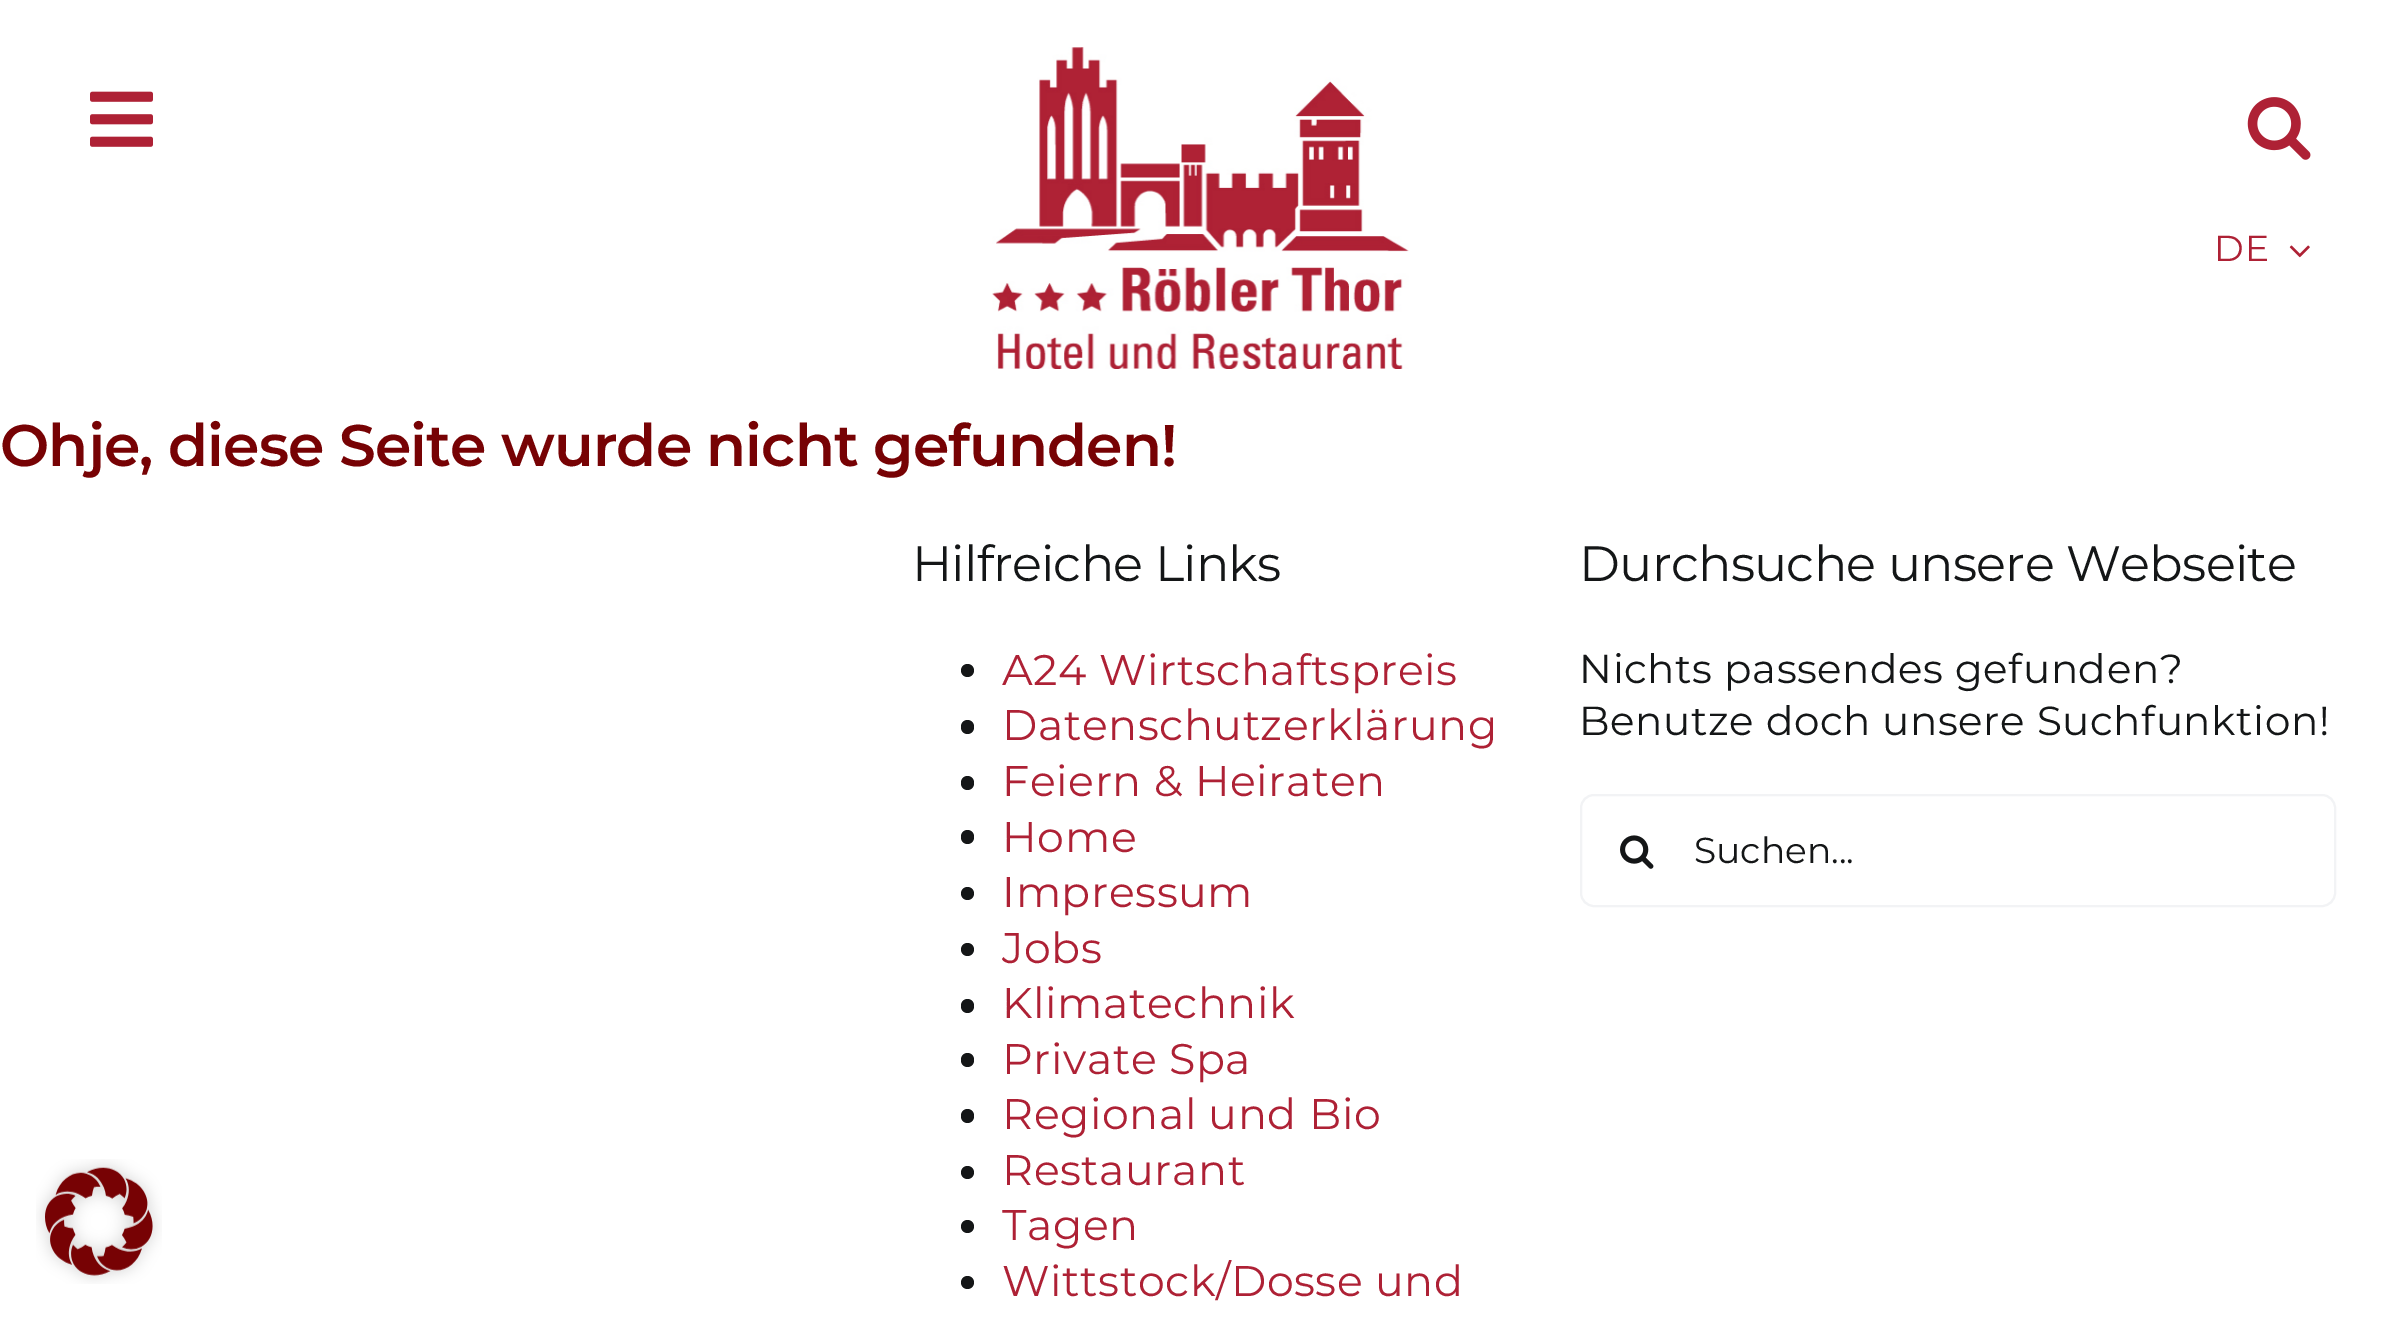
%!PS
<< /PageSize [2400 1320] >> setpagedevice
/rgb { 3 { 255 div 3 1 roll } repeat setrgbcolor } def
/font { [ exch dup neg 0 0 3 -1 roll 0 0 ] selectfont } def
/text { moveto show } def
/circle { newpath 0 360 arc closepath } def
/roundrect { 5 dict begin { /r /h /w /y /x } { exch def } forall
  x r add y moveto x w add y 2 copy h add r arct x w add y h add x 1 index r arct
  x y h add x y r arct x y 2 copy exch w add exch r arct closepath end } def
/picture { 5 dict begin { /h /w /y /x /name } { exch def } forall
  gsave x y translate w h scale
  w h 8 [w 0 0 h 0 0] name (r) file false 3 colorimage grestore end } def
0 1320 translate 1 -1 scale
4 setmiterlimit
255 255 255 rgb
0 0 2400 1320 rectfill
(img_01.rgb) 90 91 63 56 picture
(img_02.rgb) 992 47 417 322 picture
(img_03.rgb) 2247 97 64 63 picture
(img_04.rgb) 2289 245 21 13 picture
20 22 23 rgb
967.5 670.5 6.5 circle fill
961 720 13 14 6.5 roundrect fill
961 776 13 14 6.5 roundrect fill
961 830 13 14 6.5 roundrect fill
967.5 893.5 6.5 circle fill
967.5 949.5 6.5 circle fill
961 999 13 14 6.5 roundrect fill
961 1053 13 14 6.5 roundrect fill
961 1109 13 14 6.5 roundrect fill
967.5 1172.5 6.5 circle fill
967.5 1226.5 6.5 circle fill
967.5 1282.5 6.5 circle fill
242 243 245 rgb
2 setlinewidth
1581 795 754 111 13 roundrect stroke
(img_05.rgb) 1620 835 34 34 picture
(img_06.rgb) 36 1159 126 125 picture
/Montserrat-Regular 36 font
174 33 53 rgb
2214 261 moveto 1 0 (DE) ashow
/Montserrat-SemiBold 58.5 font
119 2 4 rgb
0 466 moveto -0.9 0 (Ohje, diese Seite wurde nicht gefunden!) ashow
/Montserrat-Regular 49.5 font
20 22 23 rgb
912 581 moveto -0.75 0 (Hilfreiche Links) ashow
/Montserrat-Regular 42.75 font
174 33 53 rgb
1002 685 moveto 0.6 0 (A24 Wirtschaftspreis) ashow
1002 740 moveto 0.6 0 (Datenschutzerklärung) ashow
1002 796 moveto 0.6 0 (Feiern & Heiraten) ashow
1002 852 moveto 0.6 0 (Home) ashow
1002 907 moveto 0.6 0 (Impressum) ashow
1002 963 moveto 0.6 0 (Jobs) ashow
1002 1018 moveto 0.6 0 (Klimatechnik) ashow
1002 1074 moveto 0.6 0 (Private Spa) ashow
1002 1129 moveto 0.6 0 (Regional und Bio) ashow
1002 1185 moveto 0.6 0 (Restaurant) ashow
1002 1240 moveto 0.6 0 (Tagen) ashow
1002 1296 moveto 0.6 0 (Wittstock/Dosse und) ashow
/Montserrat-Regular 49.5 font
20 22 23 rgb
1579 581 moveto -0.75 0 (Durchsuche unsere Webseite) ashow
/Montserrat-Regular 40.5 font
1579 683 moveto 0.6 0 (Nichts passendes gefunden?) ashow
1579 735 moveto 0.6 0 (Benutze doch unsere Suchfunktion!) ashow
/Montserrat-Regular 36 font
(Suchen...) 1694 863 text
showpage
